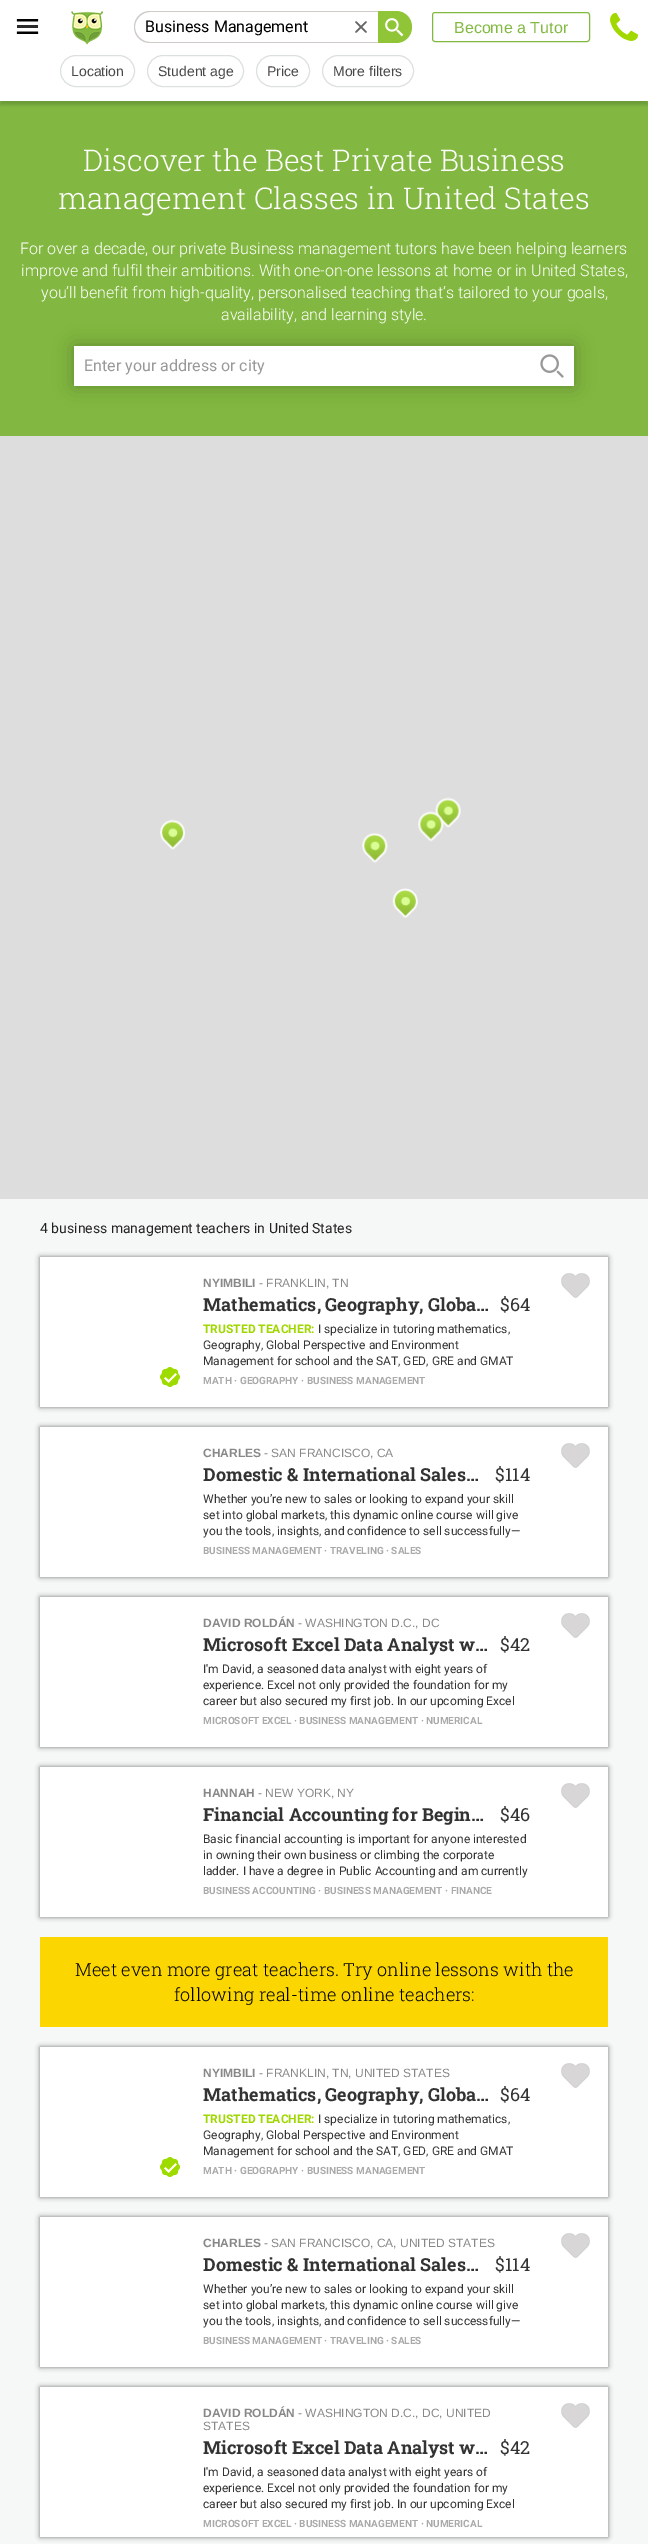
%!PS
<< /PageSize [648 2544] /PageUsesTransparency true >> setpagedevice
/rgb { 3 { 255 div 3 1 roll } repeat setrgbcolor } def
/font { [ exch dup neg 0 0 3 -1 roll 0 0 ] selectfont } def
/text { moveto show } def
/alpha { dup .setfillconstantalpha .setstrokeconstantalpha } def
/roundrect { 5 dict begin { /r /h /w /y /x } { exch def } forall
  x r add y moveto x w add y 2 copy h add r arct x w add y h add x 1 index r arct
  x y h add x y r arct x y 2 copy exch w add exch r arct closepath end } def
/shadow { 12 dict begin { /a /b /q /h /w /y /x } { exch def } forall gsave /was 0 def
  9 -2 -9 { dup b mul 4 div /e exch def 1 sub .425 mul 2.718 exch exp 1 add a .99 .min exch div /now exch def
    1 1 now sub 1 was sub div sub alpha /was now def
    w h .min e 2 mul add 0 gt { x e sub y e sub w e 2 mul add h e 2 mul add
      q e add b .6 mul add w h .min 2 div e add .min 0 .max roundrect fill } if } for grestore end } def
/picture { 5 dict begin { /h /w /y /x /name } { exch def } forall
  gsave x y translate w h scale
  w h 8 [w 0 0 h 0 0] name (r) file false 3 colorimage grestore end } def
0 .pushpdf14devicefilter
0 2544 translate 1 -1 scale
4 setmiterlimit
246 248 247 rgb
0 0 648 2544 rectfill
255 255 255 rgb
0 0 648 101 rectfill
(img_01.rgb) 16 19 23 15 picture
(img_02.rgb) 71 11 32 34 picture
207 203 200 rgb
150 11 moveto 195 0 rlineto 0 32 rlineto -195 0 rlineto -9 0 -16 -7 -16 -16 rcurveto 0 -9 7 -16 16 -16 rcurveto closepath 150 12 moveto 195 0 rlineto 0 30 rlineto -195 0 rlineto -8 0 -15 -7 -15 -15 rcurveto 0 -8 7 -15 15 -15 rcurveto closepath eofill
345 11 33 1 rectfill
345 42 33 1 rectfill
102 102 102 rgb
1.5 setlinewidth
1 setlinecap
356 22 moveto 10 10 rlineto 366 22 moveto -10 10 rlineto stroke
144 197 55 rgb
378 11 moveto 18 0 rlineto 9 0 16 7 16 16 rcurveto 0 9 -7 16 -16 16 rcurveto -18 0 rlineto closepath fill
(img_03.rgb) 385 18 19 19 picture
130 185 65 rgb
1 setlinewidth
0 setlinecap
432.5 12.5 157 29 2.5 roundrect stroke
(img_04.rgb) 610 13 28 28 picture
130 184 65 rgb
0 101 648 335 rectfill
gsave
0 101 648 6 rectclip
0 0 0 rgb
0 59 648 46 0 1.5 0.15 shadow
grestore
220 224 224 rgb
60.5 55.5 74 31 15.5 roundrect stroke
147.5 55.5 96 31 15.5 roundrect stroke
256.5 55.5 53 31 15.5 roundrect stroke
322.5 55.5 91 31 15.5 roundrect stroke
0 0 0 rgb
74 346 500 40 0 10 0.25 shadow
255 255 255 rgb
74 346 500 40 rectfill
(img_05.rgb) 540 354 24 24 picture
221 221 221 rgb
0 436 648 763 rectfill
(img_06.rgb) 160 819 25 31 picture
(img_07.rgb) 362 833 26 30 picture
(img_09.rgb) 435 797 26 31 picture
(img_08.rgb) 418 811 26 31 picture
(img_10.rgb) 392 888 26 30 picture
0 0 0 rgb
40 1257 568 150 0 2.5 0.5 shadow
255 255 255 rgb
40 1257 568 150 rectfill
(img_11.rgb) 160 1367 20 20 picture
(img_12.rgb) 561 1273 29 25 picture
0 0 0 rgb
40 1427 568 150 0 2.5 0.5 shadow
255 255 255 rgb
40 1427 568 150 rectfill
(img_12.rgb) 561 1443 29 25 picture
0 0 0 rgb
40 1597 568 150 0 2.5 0.5 shadow
255 255 255 rgb
40 1597 568 150 rectfill
(img_12.rgb) 561 1613 29 25 picture
0 0 0 rgb
40 1767 568 150 0 2.5 0.5 shadow
255 255 255 rgb
40 1767 568 150 rectfill
(img_12.rgb) 561 1783 29 25 picture
251 214 0 rgb
40 1937 568 90 rectfill
0 0 0 rgb
40 2047 568 150 0 2.5 0.5 shadow
255 255 255 rgb
40 2047 568 150 rectfill
(img_11.rgb) 160 2157 20 20 picture
(img_12.rgb) 561 2063 29 25 picture
0 0 0 rgb
40 2217 568 150 0 2.5 0.5 shadow
255 255 255 rgb
40 2217 568 150 rectfill
(img_12.rgb) 561 2233 29 25 picture
0 0 0 rgb
40 2387 568 150 0 2.5 0.5 shadow
255 255 255 rgb
40 2387 568 150 rectfill
(img_12.rgb) 561 2403 29 25 picture
/Roboto-Regular 16 font
0 0 0 rgb
(Business Management) 145 32 text
/LiberationSans-Regular 16 font
130 185 65 rgb
(Become a Tutor) 454 33 text
/LiberationSans-Regular 14 font
72 72 72 rgb
(Location) 71 76 text
(Student age) 158 76 text
(Price) 267 76 text
(More filters) 333 76 text
/RobotoSlab-Light 30 font
255 255 255 rgb
(Discover the Best Private Business) 83 171 text
(management Classes in United States) 58 209 text
/Roboto-Light 16 font
(For over a decade, our private Business management tutors have been helping learners) 20 254 text
(improve and fulfil their ambitions. With one-on-one lessons at home or in United States,) 21 276 text
(you’ll benefit from high-quality, personalised teaching that’s tailored to your goals,) 41 298 text
(availability, and learning style.) 221 320 text
/Roboto-Regular 16 font
153 153 153 rgb
(Enter your address or city) 84 371 text
/Roboto-Regular 14 font
34 34 34 rgb
(4 business management teachers in United States) 40 1233 text
/LiberationSans-Bold 12 font
136 136 136 rgb
(NYIMBILI) 203 1287 text
/LiberationSans-Regular 12 font
(- FRANKLIN, TN) 259 1287 text
/RobotoSlab-Bold 18 font
51 51 51 rgb
(Mathematics, Geography, Globa…) 203 1311 text
/RobotoSlab-Regular 18 font
($64) 500 1311 text
/Roboto-Bold 12 font
160 215 0 rgb
(TRUSTED TEACHER:) 203 1333 text
/Roboto-Regular 12 font
51 51 51 rgb
(I specialize in tutoring mathematics,) 318 1333 text
(Geography, Global Perspective and Environment) 203 1349 text
(Management for school and the SAT, GED, GRE and GMAT) 203 1365 text
/Roboto-Bold 10 font
170 170 170 rgb
(MATH · GEOGRAPHY · BUSINESS MANAGEMENT) 203 1384 text
/LiberationSans-Bold 12 font
136 136 136 rgb
(CHARLES) 203 1457 text
/LiberationSans-Regular 12 font
(- SAN FRANCISCO, CA) 264 1457 text
/RobotoSlab-Bold 18 font
51 51 51 rgb
(Domestic & International Sales…) 203 1481 text
/RobotoSlab-Regular 18 font
($114) 495 1481 text
/Roboto-Regular 12 font
(Whether you’re new to sales or looking to expand your skill) 203 1503 text
(set into global markets, this dynamic online course will give) 203 1519 text
(you the tools, insights, and confidence to sell successfully—) 203 1535 text
/Roboto-Bold 10 font
170 170 170 rgb
(BUSINESS MANAGEMENT · TRAVELING · SALES) 203 1554 text
/LiberationSans-Bold 12 font
136 136 136 rgb
(DAVID ROLDÁN) 203 1627 text
/LiberationSans-Regular 12 font
(- WASHINGTON D.C., DC) 298 1627 text
/RobotoSlab-Bold 18 font
51 51 51 rgb
(Microsoft Excel Data Analyst w…) 203 1651 text
/RobotoSlab-Regular 18 font
($42) 500 1651 text
/Roboto-Regular 12 font
(I'm David, a seasoned data analyst with eight years of) 203 1673 text
(experience. Excel not only provided the foundation for my) 203 1689 text
(career but also secured my first job. In our upcoming Excel) 203 1705 text
/Roboto-Bold 10 font
170 170 170 rgb
(MICROSOFT EXCEL · BUSINESS MANAGEMENT · NUMERICAL) 203 1724 text
/LiberationSans-Bold 12 font
136 136 136 rgb
(HANNAH) 203 1797 text
/LiberationSans-Regular 12 font
(- NEW YORK, NY) 258 1797 text
/RobotoSlab-Bold 18 font
51 51 51 rgb
(Financial Accounting for Begin…) 203 1821 text
/RobotoSlab-Regular 18 font
($46) 500 1821 text
/Roboto-Regular 12 font
(Basic financial accounting is important for anyone interested) 203 1843 text
(in owning their own business or climbing the corporate) 203 1859 text
(ladder. I have a degree in Public Accounting and am currently) 203 1875 text
/Roboto-Bold 10 font
170 170 170 rgb
(BUSINESS ACCOUNTING · BUSINESS MANAGEMENT · FINANCE) 203 1894 text
/RobotoSlab-Light 18 font
0 0 0 rgb
(Meet even more great teachers. Try online lessons with the) 75 1976 text
(following real-time online teachers:) 174 2001 text
/LiberationSans-Bold 12 font
136 136 136 rgb
(NYIMBILI) 203 2077 text
/LiberationSans-Regular 12 font
(- FRANKLIN, TN, UNITED STATES) 259 2077 text
/RobotoSlab-Bold 18 font
51 51 51 rgb
(Mathematics, Geography, Globa…) 203 2101 text
/RobotoSlab-Regular 18 font
($64) 500 2101 text
/Roboto-Bold 12 font
160 215 0 rgb
(TRUSTED TEACHER:) 203 2123 text
/Roboto-Regular 12 font
51 51 51 rgb
(I specialize in tutoring mathematics,) 318 2123 text
(Geography, Global Perspective and Environment) 203 2139 text
(Management for school and the SAT, GED, GRE and GMAT) 203 2155 text
/Roboto-Bold 10 font
170 170 170 rgb
(MATH · GEOGRAPHY · BUSINESS MANAGEMENT) 203 2174 text
/LiberationSans-Bold 12 font
136 136 136 rgb
(CHARLES) 203 2247 text
/LiberationSans-Regular 12 font
(- SAN FRANCISCO, CA, UNITED STATES) 264 2247 text
/RobotoSlab-Bold 18 font
51 51 51 rgb
(Domestic & International Sales…) 203 2271 text
/RobotoSlab-Regular 18 font
($114) 495 2271 text
/Roboto-Regular 12 font
(Whether you’re new to sales or looking to expand your skill) 203 2293 text
(set into global markets, this dynamic online course will give) 203 2309 text
(you the tools, insights, and confidence to sell successfully—) 203 2325 text
/Roboto-Bold 10 font
170 170 170 rgb
(BUSINESS MANAGEMENT · TRAVELING · SALES) 203 2344 text
/LiberationSans-Bold 12 font
136 136 136 rgb
(DAVID ROLDÁN) 203 2417 text
/LiberationSans-Regular 12 font
(- WASHINGTON D.C., DC, UNITED) 298 2417 text
(STATES) 203 2430 text
/RobotoSlab-Bold 18 font
51 51 51 rgb
(Microsoft Excel Data Analyst w…) 203 2454 text
/RobotoSlab-Regular 18 font
($42) 500 2454 text
/Roboto-Regular 12 font
(I'm David, a seasoned data analyst with eight years of) 203 2476 text
(experience. Excel not only provided the foundation for my) 203 2492 text
(career but also secured my first job. In our upcoming Excel) 203 2508 text
/Roboto-Bold 10 font
170 170 170 rgb
(MICROSOFT EXCEL · BUSINESS MANAGEMENT · NUMERICAL) 203 2527 text
.poppdf14devicefilter showpage
